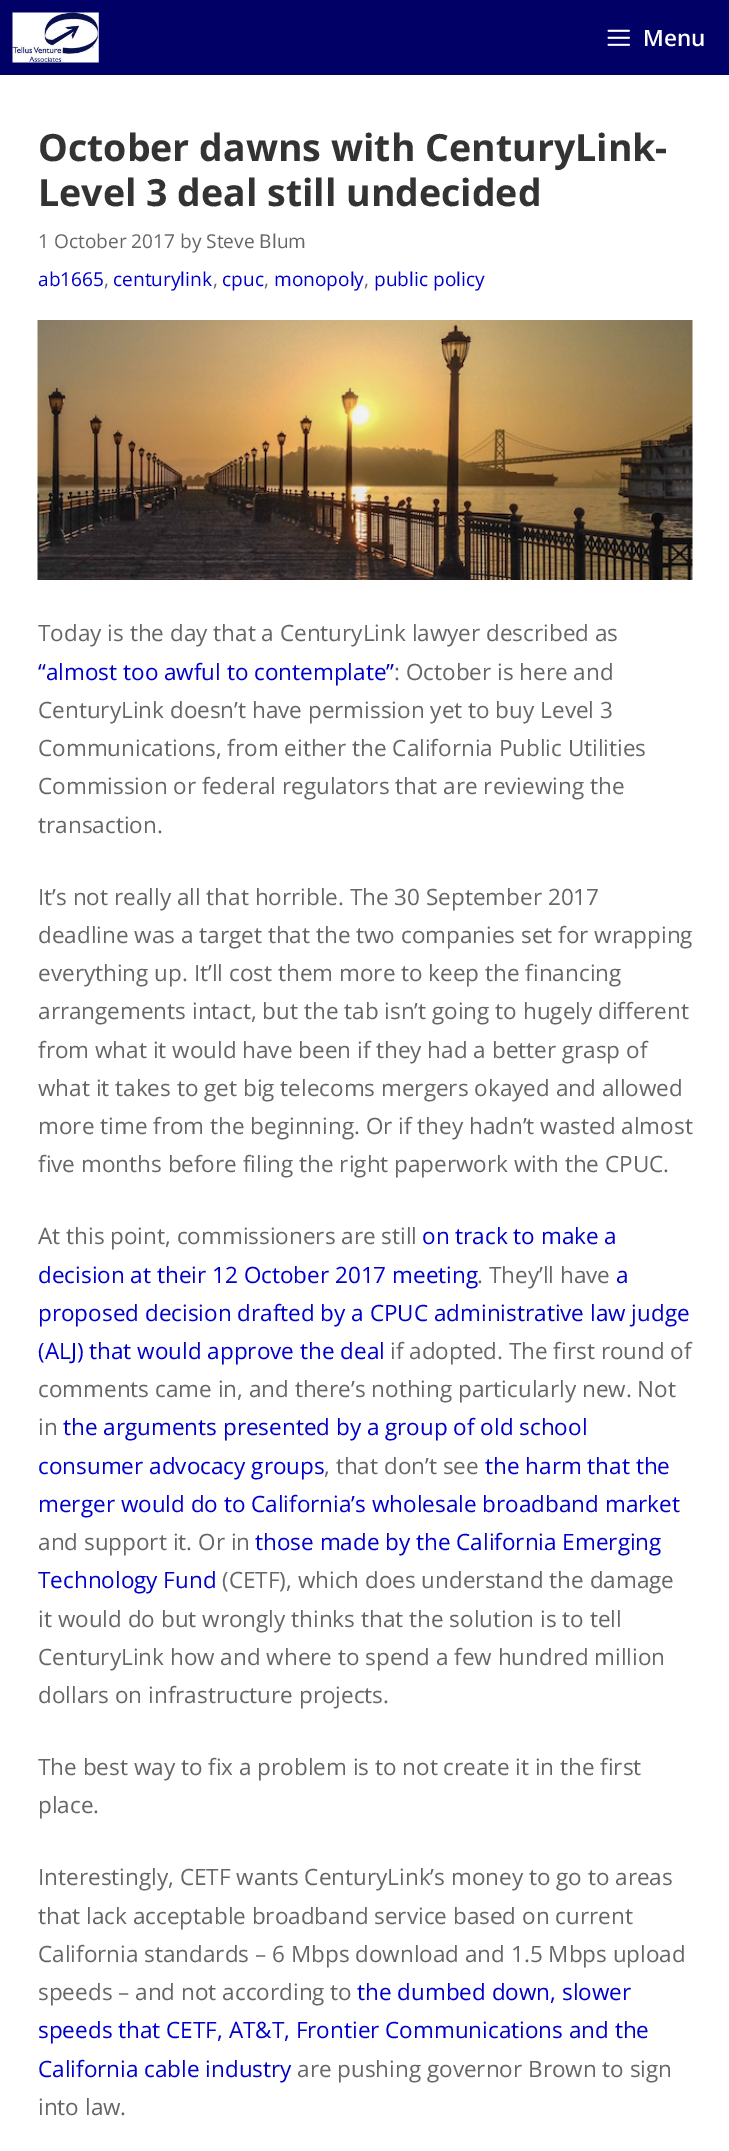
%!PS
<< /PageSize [729 2151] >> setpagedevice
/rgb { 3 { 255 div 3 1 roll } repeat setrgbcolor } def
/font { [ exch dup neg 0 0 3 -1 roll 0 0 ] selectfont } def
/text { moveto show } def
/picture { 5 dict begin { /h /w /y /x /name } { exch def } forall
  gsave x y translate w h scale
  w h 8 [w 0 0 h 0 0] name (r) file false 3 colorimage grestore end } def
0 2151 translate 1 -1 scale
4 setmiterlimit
255 255 255 rgb
0 0 729 2151 rectfill
0 0 102 rgb
0 0 729 75 rectfill
(img_01.rgb) 12 12 87 51 picture
(img_02.rgb) 607 29 23 17 picture
(img_03.rgb) 37 320 656 260 picture
/OpenSans-SemiBold 22.5 font
255 255 255 rgb
(Menu) 643 46 text
/OpenSans-Bold 37.5 font
51 51 51 rgb
(October dawns with CenturyLink-) 38 161 text
(Level 3 deal still undecided) 38 206 text
/OpenSans-Regular 19.1 font
102 102 102 rgb
(1 October 2017 by Steve Blum) 38 248 text
0 0 204 rgb
(ab1665) 38 286 text
102 102 102 rgb
(,) 104 286 text
0 0 204 rgb
(centurylink) 113 286 text
102 102 102 rgb
(,) 213 286 text
0 0 204 rgb
(cpuc) 222 286 text
102 102 102 rgb
(,) 264 286 text
0 0 204 rgb
(monopoly) 274 286 text
102 102 102 rgb
(,) 364 286 text
0 0 204 rgb
(public policy) 374 286 text
/OpenSans-Regular 22.5 font
102 102 102 rgb
(Today is the day that a CenturyLink lawyer described as) 38 641 text
0 0 204 rgb
(“almost too awful to contemplate”) 38 680 text
102 102 102 rgb
(: October is here and) 394 680 text
(CenturyLink doesn’t have permission yet to buy Level 3) 38 718 text
(Communications, from either the California Public Utilities) 38 756 text
(Commission or federal regulators that are reviewing the) 38 794 text
(transaction.) 38 833 text
(It’s not really all that horrible. The 30 September 2017) 38 905 text
(deadline was a target that the two companies set for wrapping) 38 943 text
(everything up. It’ll cost them more to keep the financing) 38 981 text
(arrangements intact, but the tab isn’t going to hugely different) 38 1019 text
(from what it would have been if they had a better grasp of) 38 1058 text
(what it takes to get big telecoms mergers okayed and allowed) 38 1096 text
(more time from the beginning. Or if they hadn’t wasted almost) 38 1134 text
(five months before filing the right paperwork with the CPUC.) 38 1172 text
(At this point, commissioners are still) 38 1244 text
0 0 204 rgb
(on track to make a) 422 1244 text
(decision at their 12 October 2017 meeting) 38 1283 text
102 102 102 rgb
(. They’ll have) 477 1283 text
0 0 204 rgb
(a) 616 1283 text
(proposed decision drafted by a CPUC administrative law judge) 38 1321 text
(\(ALJ\) that would approve the deal) 38 1359 text
102 102 102 rgb
(if adopted. The first round of) 390 1359 text
(comments came in, and there’s nothing particularly new. Not) 38 1397 text
(in) 38 1435 text
0 0 204 rgb
(the arguments presented by a group of old school) 63 1435 text
(consumer advocacy groups) 38 1474 text
102 102 102 rgb
(, that don’t see) 324 1474 text
0 0 204 rgb
(the harm that the) 485 1474 text
(merger would do to California’s wholesale broadband market) 38 1512 text
102 102 102 rgb
(and support it. Or in) 38 1550 text
0 0 204 rgb
(those made by the California Emerging) 255 1550 text
(Technology Fund) 38 1588 text
102 102 102 rgb
(\(CETF\), which does understand the damage) 222 1588 text
(it would do but wrongly thinks that the solution is to tell) 38 1627 text
(CenturyLink how and where to spend a few hundred million) 38 1665 text
(dollars on infrastructure projects.) 38 1703 text
(The best way to fix a problem is to not create it in the first) 38 1775 text
(place.) 38 1813 text
(Interestingly, CETF wants CenturyLink’s money to go to areas) 38 1885 text
(that lack acceptable broadband service based on current) 38 1924 text
(California standards – 6 Mbps download and 1.5 Mbps upload) 38 1962 text
(speeds – and not according to) 38 2000 text
0 0 204 rgb
(the dumbed down, slower) 357 2000 text
(speeds that CETF, AT&T, Frontier Communications and the) 38 2038 text
(California cable industry) 38 2077 text
102 102 102 rgb
(are pushing governor Brown to sign) 297 2077 text
(into law.) 38 2115 text
showpage
